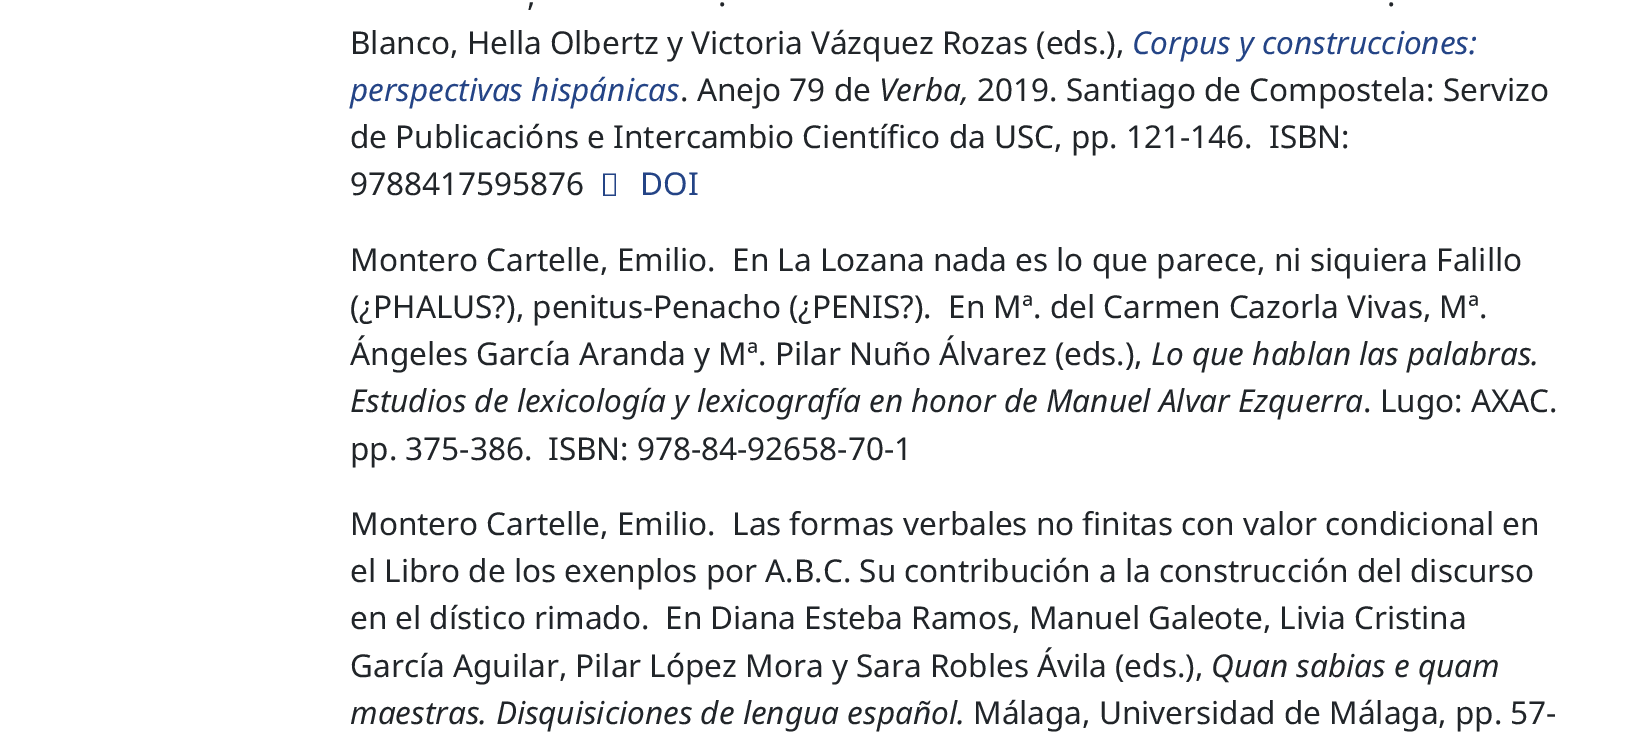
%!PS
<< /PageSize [1627 756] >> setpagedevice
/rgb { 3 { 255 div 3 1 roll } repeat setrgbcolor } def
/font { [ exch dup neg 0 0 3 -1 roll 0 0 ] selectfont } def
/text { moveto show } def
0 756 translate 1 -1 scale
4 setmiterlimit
255 255 255 rgb
0 0 1627 756 rectfill
36 68 134 rgb
603 196 moveto 0 -22.5 rlineto 13 0 rlineto 0 22.5 rlineto closepath 605 194.5 moveto 9.5 0 rlineto 0 -19.5 rlineto -9.5 0 rlineto closepath fill
/NotoSans-Regular 31.5 font
33 37 41 rgb
(,) 527 6 text
(.) 718 6 text
(.) 1387 6 text
(Blanco, Hella Olbertz y Victoria Vázquez Rozas \(eds.\),) 350 54 text
/NotoSans-Italic 31.5 font
36 68 134 rgb
(Corpus y construcciones:) 1132 54 text
(perspectivas hispánicas) 350 101 text
/NotoSans-Regular 31.5 font
33 37 41 rgb
(. Anejo 79 de) 680 101 text
/NotoSans-Italic 31.5 font
(Verba,) 879 101 text
/NotoSans-Regular 31.5 font
(2019. Santiago de Compostela: Servizo) 977 101 text
(de Publicacións e Intercambio Científico da USC, pp. 121-146.) 350 148 text
(ISBN:) 1269 148 text
(9788417595876) 350 195 text
36 68 134 rgb
(DOI) 640 195 text
33 37 41 rgb
(Montero Cartelle, Emilio.) 350 271 text
(En La Lozana nada es lo que parece, ni siquiera Falillo) 732 271 text
(\(¿PHALUS?\), penitus-Penacho \(¿PENIS?\).) 350 318 text
(En Mª. del Carmen Cazorla Vivas, Mª.) 948 318 text
(Ángeles García Aranda y Mª. Pilar Nuño Álvarez \(eds.\),) 350 365 text
/NotoSans-Italic 31.5 font
(Lo que hablan las palabras.) 1151 365 text
(Estudios de lexicología y lexicografía en honor de Manuel Alvar Ezquerra) 350 412 text
/NotoSans-Regular 31.5 font
(. Lugo: AXAC.) 1363 412 text
(pp. 375-386.) 350 460 text
(ISBN: 978-84-92658-70-1) 548 460 text
(Montero Cartelle, Emilio.) 350 535 text
(Las formas verbales no finitas con valor condicional en) 732 535 text
(el Libro de los exenplos por A.B.C. Su contribución a la construcción del discurso) 350 582 text
(en el dístico rimado.) 350 629 text
(En Diana Esteba Ramos, Manuel Galeote, Livia Cristina) 665 629 text
(García Aguilar, Pilar López Mora y Sara Robles Ávila \(eds.\),) 350 677 text
/NotoSans-Italic 31.5 font
(Quan sabias e quam) 1211 677 text
(maestras. Disquisiciones de lengua español.) 350 724 text
/NotoSans-Regular 31.5 font
(Málaga, Universidad de Málaga, pp. 57-) 973 724 text
showpage
